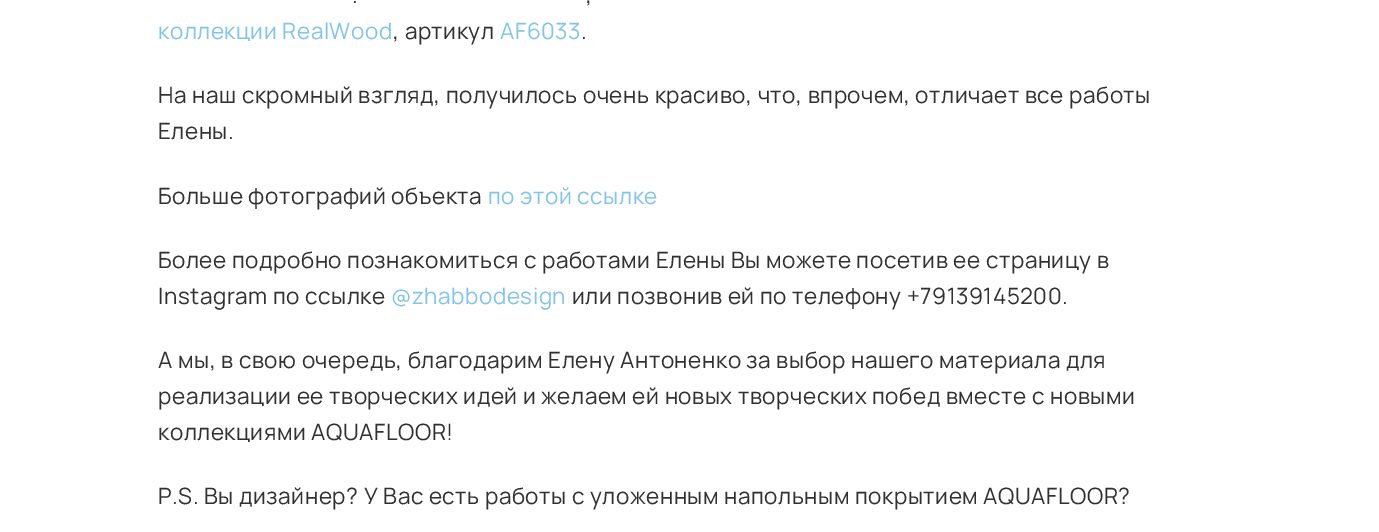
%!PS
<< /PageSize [1379 532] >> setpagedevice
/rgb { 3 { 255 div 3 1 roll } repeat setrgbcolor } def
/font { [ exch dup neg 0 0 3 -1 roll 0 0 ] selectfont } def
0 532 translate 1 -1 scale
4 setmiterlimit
255 255 255 rgb
0 0 1379 532 rectfill
/Manrope-Regular 22.5 font
49 49 49 rgb
352 3 moveto 0.55 0 (.) ashow
586 3 moveto 0.55 0 (,) ashow
131 197 233 rgb
158 39 moveto 0.55 0 (коллекции RealWood) ashow
49 49 49 rgb
393 39 moveto 0.55 0 (, артикул) ashow
131 197 233 rgb
500 39 moveto 0.55 0 (AF6033) ashow
49 49 49 rgb
581 39 moveto 0.55 0 (.) ashow
158 103 moveto 0.55 0 (На наш скромный взгляд, получилось очень красиво, что, впрочем, отличает все работы) ashow
158 139 moveto 0.55 0 (Елены.) ashow
158 204 moveto 0.55 0 (Больше фотографий объекта) ashow
131 197 233 rgb
488 204 moveto 0.55 0 (по этой ссылке) ashow
49 49 49 rgb
158 268 moveto 0.55 0 (Более подробно познакомиться с работами Елены Вы можете посетив ее страницу в) ashow
158 304 moveto 0.55 0 (Instagram по ссылке) ashow
131 197 233 rgb
391 304 moveto 0.55 0 (@zhabbodesign) ashow
49 49 49 rgb
572 304 moveto 0.55 0 (или позвонив ей по телефону +79139145200.) ashow
158 368 moveto 0.55 0 (А мы, в свою очередь, благодарим Елену Антоненко за выбор нашего материала для) ashow
158 404 moveto 0.55 0 (реализации ее творческих идей и желаем ей новых творческих побед вместе с новыми) ashow
158 440 moveto 0.55 0 (коллекциями AQUAFLOOR!) ashow
158 504 moveto 0.55 0 (P.S. Вы дизайнер? У Вас есть работы с уложенным напольным покрытием AQUAFLOOR?) ashow
showpage
